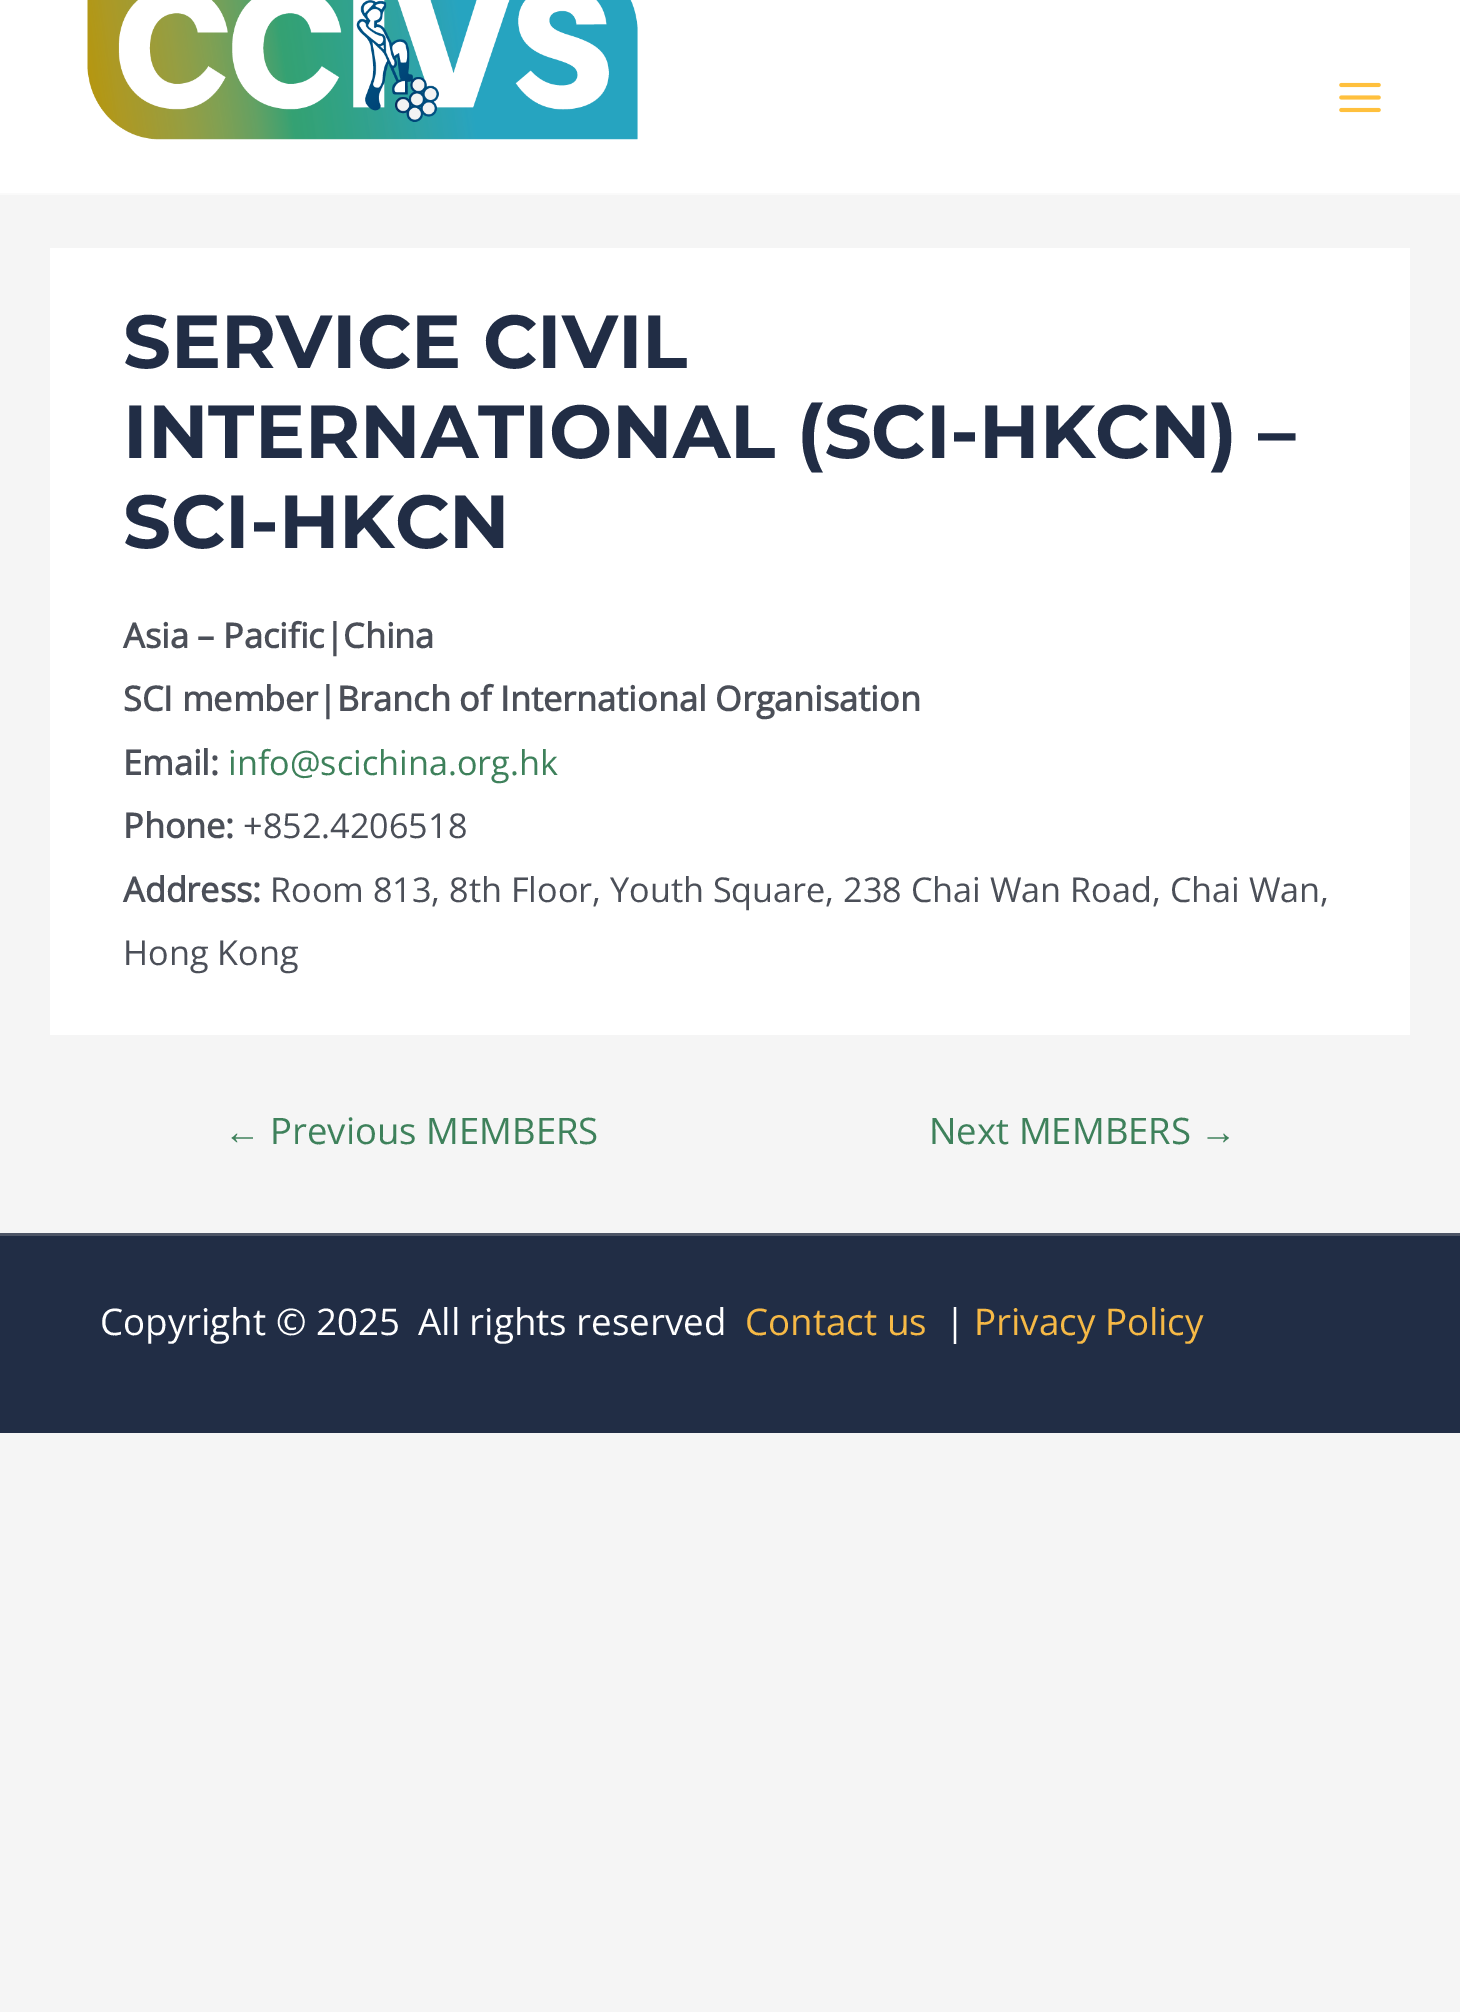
%!PS
<< /PageSize [1460 2012] >> setpagedevice
/rgb { 3 { 255 div 3 1 roll } repeat setrgbcolor } def
/font { [ exch dup neg 0 0 3 -1 roll 0 0 ] selectfont } def
/text { moveto show } def
/picture { 5 dict begin { /h /w /y /x /name } { exch def } forall
  gsave x y translate w h scale
  w h 8 [w 0 0 h 0 0] name (r) file false 3 colorimage grestore end } def
0 2012 translate 1 -1 scale
4 setmiterlimit
245 245 245 rgb
0 0 1460 2012 rectfill
255 255 255 rgb
0 0 1460 193 rectfill
250 250 250 rgb
0 193 1460 2 rectfill
(img_01.rgb) 87 0 551 140 picture
(img_02.rgb) 1339 82 42 31 picture
255 255 255 rgb
50 248 1360 787 rectfill
33 45 69 rgb
0 1236 1460 197 rectfill
77 85 102 rgb
0 1233 1460 3 rectfill
/Montserrat-Thin 75 font
33 45 69 rgb
(SERVICE CIVIL) 123 368 text
(INTERNATIONAL \(SCI-HKCN\) –) 123 458 text
(SCI-HKCN) 123 548 text
/OpenSans-Bold 34.2 font
75 79 88 rgb
(Asia – Pacific|China) 123 648 text
(SCI member|Branch of International Organisation) 123 711 text
(Email:) 123 775 text
/OpenSans-Regular 34.2 font
62 129 91 rgb
(info@scichina.org.hk) 228 775 text
/OpenSans-Bold 34.2 font
75 79 88 rgb
(Phone:) 123 838 text
/OpenSans-Regular 34.2 font
(+852.4206518) 243 838 text
/OpenSans-Bold 34.2 font
(Address:) 123 902 text
/OpenSans-Regular 34.2 font
(Room 813, 8th Floor, Youth Square, 238 Chai Wan Road, Chai Wan,) 270 902 text
(Hong Kong) 123 965 text
/LiberationSans-Regular 36.5 font
62 129 91 rgb
(←) 224 1144 text
/OpenSans-Regular 36.5 font
(Previous MEMBERS) 270 1144 text
(Next MEMBERS) 929 1144 text
/LiberationSans-Regular 36.5 font
(→) 1200 1144 text
/OpenSans-Regular 36.75 font
255 255 255 rgb
(Copyright © 2025) 100 1335 text
(All rights reserved) 418 1335 text
246 185 70 rgb
(Contact us) 745 1335 text
255 255 255 rgb
(|) 945 1335 text
246 185 70 rgb
(Privacy Policy) 974 1335 text
showpage
